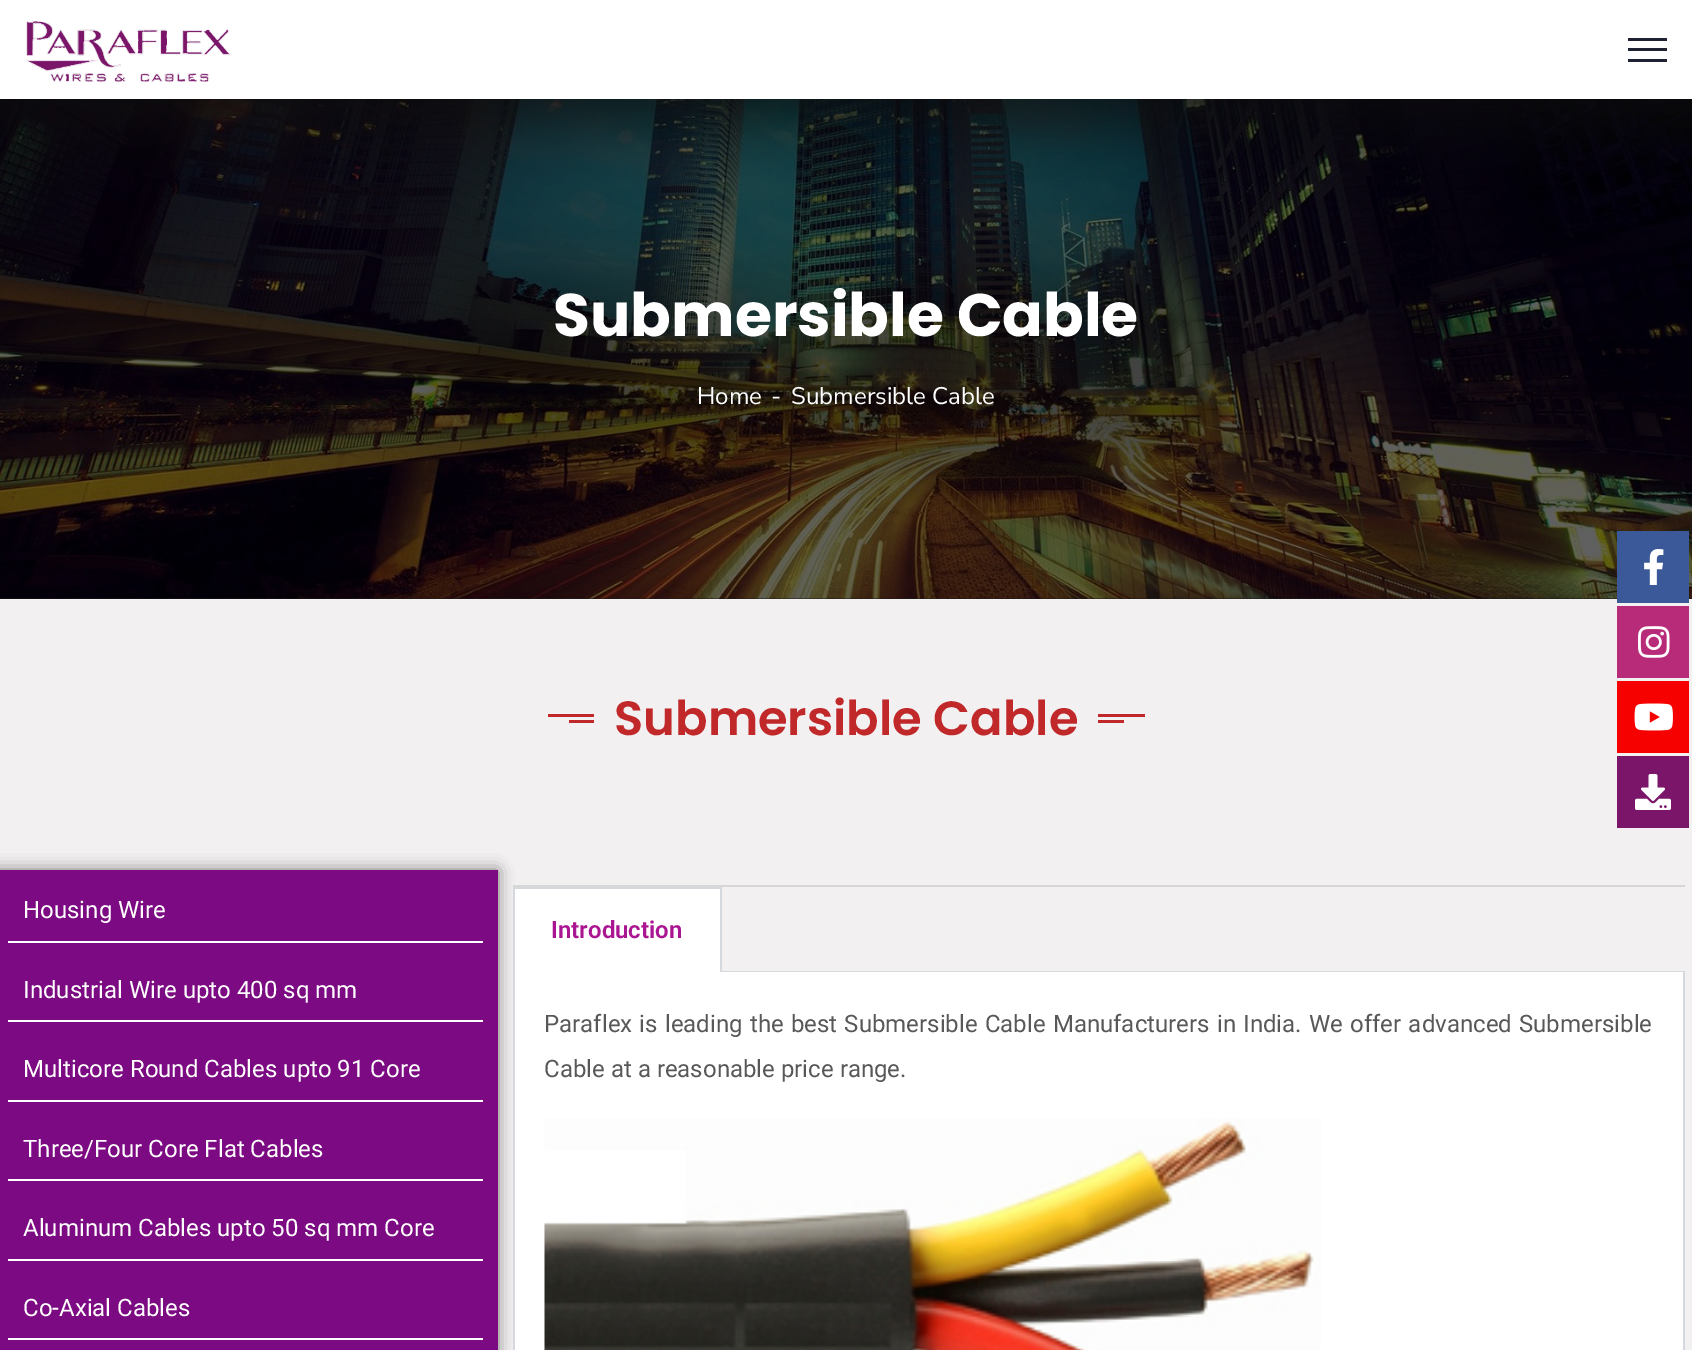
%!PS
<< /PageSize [1692 1350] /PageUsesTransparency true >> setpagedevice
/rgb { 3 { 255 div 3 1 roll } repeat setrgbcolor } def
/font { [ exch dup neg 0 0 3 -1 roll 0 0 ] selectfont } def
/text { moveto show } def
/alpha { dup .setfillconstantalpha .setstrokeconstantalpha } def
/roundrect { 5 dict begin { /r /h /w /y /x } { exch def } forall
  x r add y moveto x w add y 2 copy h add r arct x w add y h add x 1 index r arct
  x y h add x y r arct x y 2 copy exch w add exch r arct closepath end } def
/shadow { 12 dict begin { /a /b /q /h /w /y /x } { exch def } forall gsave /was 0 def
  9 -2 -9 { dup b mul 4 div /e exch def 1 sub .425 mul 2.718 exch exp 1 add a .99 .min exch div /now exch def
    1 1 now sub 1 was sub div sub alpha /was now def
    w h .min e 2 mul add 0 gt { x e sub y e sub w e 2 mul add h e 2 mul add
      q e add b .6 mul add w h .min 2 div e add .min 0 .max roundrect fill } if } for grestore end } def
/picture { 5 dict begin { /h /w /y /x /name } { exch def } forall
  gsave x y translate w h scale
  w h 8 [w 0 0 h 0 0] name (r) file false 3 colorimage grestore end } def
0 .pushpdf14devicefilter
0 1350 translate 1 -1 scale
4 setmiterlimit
255 255 255 rgb
0 0 1692 1350 rectfill
(img_01.rgb) 26 21 205 61 picture
31 34 51 rgb
1628 38 39 3 rectfill
1628 48 39 3 rectfill
1628 59 39 3 rectfill
26 26 26 rgb
0 598 1692 1 rectfill
(img_02.rgb) 0 99 1692 500 picture
242 240 240 rgb
0 599 1692 751 rectfill
193 40 42 rgb
548 714 46 3 rectfill
569 720 25 3 rectfill
1098 714 47 3 rectfill
1098 720 26 3 rectfill
0 0 0 rgb
-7 870 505 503 0 7.5 0.5 shadow
124 10 131 rgb
0 870 498 480 rectfill
255 255 255 rgb
8 941 475 2 rectfill
8 1020 475 2 rectfill
8 1100 475 2 rectfill
8 1179 475 2 rectfill
8 1259 475 2 rectfill
8 1338 475 2 rectfill
215 215 215 rgb
513 885 1172 2 rectfill
255 255 255 rgb
515 889 205 83 rectfill
213 216 220 rgb
513 887 209 2 rectfill
720 887 2 85 rectfill
513 887 2 85 rectfill
720 971 965 1 rectfill
255 255 255 rgb
515 972 1168 378 rectfill
213 216 220 rgb
1683 972 2 378 rectfill
513 972 2 378 rectfill
(img_03.rgb) 544 1118 777 232 picture
59 89 152 rgb
1617 531 72 72 rectfill
(img_04.rgb) 1644 549 20 36 picture
184 43 121 rgb
1617 606 72 72 rectfill
(img_05.rgb) 1638 626 32 32 picture
247 0 0 rgb
1617 681 72 72 rectfill
(img_06.rgb) 1634 703 39 28 picture
122 21 105 rgb
1617 756 72 72 rectfill
(img_07.rgb) 1635 774 36 36 picture
/Poppins-Bold 60 font
255 255 255 rgb
(Submersible Cable) 553 336 text
/NunitoSans-Regular 24 font
(Home) 697 404 text
(-) 771 404 text
(Submersible Cable) 791 404 text
/Poppins-SemiBold 48 font
193 40 42 rgb
(Submersible Cable) 614 735 text
/Roboto-Regular 24 font
255 255 255 rgb
(Housing Wire) 23 918 text
(Industrial Wire upto 400 sq mm) 23 998 text
(Multicore Round Cables upto 91 Core) 23 1077 text
(Three/Four Core Flat Cables) 23 1157 text
(Aluminum Cables upto 50 sq mm Core) 23 1236 text
(Co-Axial Cables) 23 1316 text
/Roboto-SemiBold 24 font
170 21 145 rgb
(Introduction) 551 938 text
/Roboto-Regular 24 font
88 88 88 rgb
544 1032 moveto 1.25 0 32 (Paraflex is leading the best Submersible Cable Manufacturers in India. We offer advanced Submersible) widthshow
(Cable at a reasonable price range.) 544 1077 text
.poppdf14devicefilter showpage
